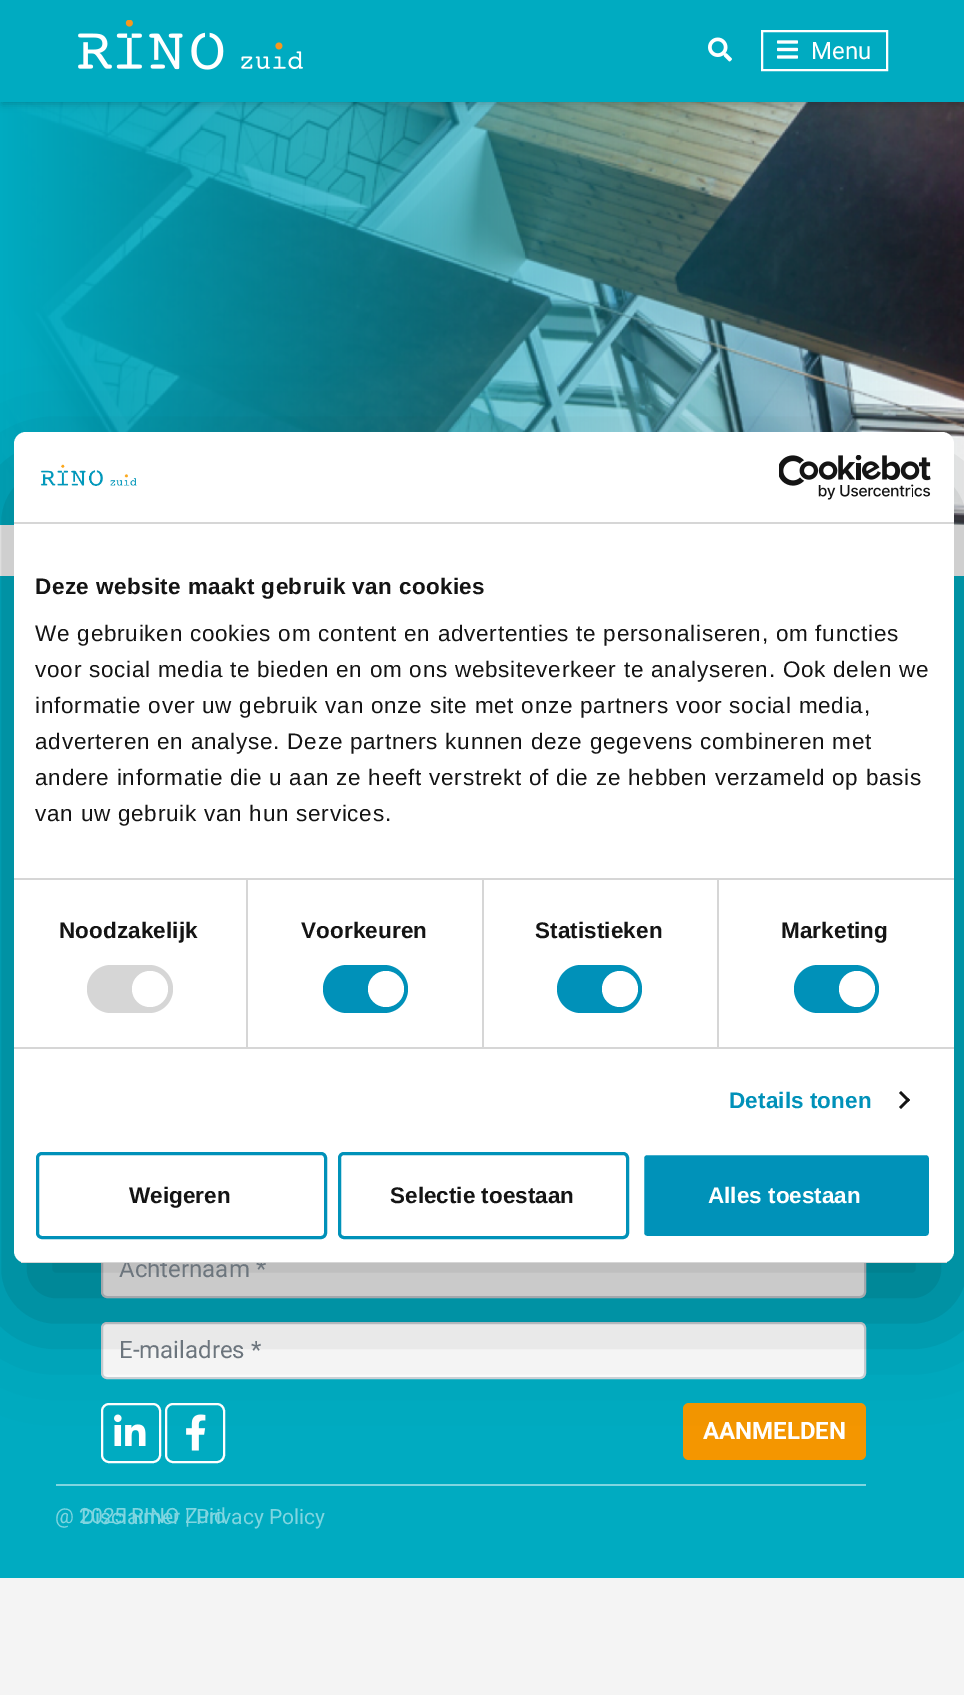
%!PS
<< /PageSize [964 1695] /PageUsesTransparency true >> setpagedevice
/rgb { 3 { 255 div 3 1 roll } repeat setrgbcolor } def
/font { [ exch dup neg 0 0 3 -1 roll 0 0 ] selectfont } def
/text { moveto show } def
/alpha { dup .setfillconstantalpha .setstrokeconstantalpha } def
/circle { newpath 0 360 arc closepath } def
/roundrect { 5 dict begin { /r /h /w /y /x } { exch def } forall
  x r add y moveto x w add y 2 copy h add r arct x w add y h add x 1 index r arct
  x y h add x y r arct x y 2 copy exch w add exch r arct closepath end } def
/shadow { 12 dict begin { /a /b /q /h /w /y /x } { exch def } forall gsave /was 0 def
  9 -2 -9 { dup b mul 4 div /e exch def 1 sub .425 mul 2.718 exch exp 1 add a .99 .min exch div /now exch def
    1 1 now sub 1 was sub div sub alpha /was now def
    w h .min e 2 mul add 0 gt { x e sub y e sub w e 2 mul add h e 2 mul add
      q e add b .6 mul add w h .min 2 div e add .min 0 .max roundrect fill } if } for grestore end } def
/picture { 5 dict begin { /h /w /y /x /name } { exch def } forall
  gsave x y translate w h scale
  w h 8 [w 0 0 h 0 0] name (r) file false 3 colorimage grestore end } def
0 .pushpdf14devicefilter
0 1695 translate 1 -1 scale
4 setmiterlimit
244 244 244 rgb
0 0 964 1695 rectfill
(img_04.rgb) 0 102 964 423 picture
0 0 0 rgb
2 2 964 102 0 4 0.2 shadow
0 171 193 rgb
0 0 964 102 rectfill
(img_01.rgb) 78 20 225 50 picture
(img_02.rgb) 708 37 24 25 picture
255 255 255 rgb
2 setlinewidth
762 31 125 39 rectstroke
(img_03.rgb) 777 40 21 19 picture
0 171 193 rgb
0 576 964 1002 rectfill
255 255 255 rgb
102 1242 763 55 5 roundrect gsave fill grestore
206 212 218 rgb
stroke
255 255 255 rgb
102 1323 763 55 5 roundrect gsave fill grestore
206 212 218 rgb
stroke
255 255 255 rgb
102 1404 58 58 7 roundrect stroke
(img_07.rgb) 114 1414 32 32 picture
166 1404 58 58 7 roundrect stroke
(img_08.rgb) 186 1414 20 37 picture
244 150 0 rgb
683 1403 183 57 6 roundrect fill
0 0 0 rgb
14 480 940 831 12 51 0.3 shadow
128 213 224 rgb
56 1484 810 2 rectfill
/Roboto-Regular 24 font
255 255 255 rgb
(Menu) 811 59 text
108 117 125 rgb
(Achternaam *) 119 1277 text
255 255 255 rgb
14 432 940 831 12 roundrect fill
0 146 185 rgb
642.5 1153.5 288 84 4.5 roundrect gsave fill grestore
255 255 255 rgb
3 setlinewidth
stroke
/LiberationSans-Bold 22.5 font
(Alles toestaan) 708 1203 text
0 146 185 rgb
339.5 1153.5 288 84 4.5 roundrect stroke
20 20 20 rgb
(Selectie toestaan) 390 1203 text
0 145 185 rgb
37.5 1153.5 288 84 4.5 roundrect stroke
20 20 20 rgb
(Weigeren) 129 1203 text
gsave
14 432 940 831 12 roundrect clip newpath
214 214 214 rgb
14 1262 940 1 rectfill
grestore
901 1091 moveto 9 9 rlineto -2 2 rlineto -9 -9 rlineto closepath fill
908 1098 moveto 2 2 rlineto -9 9 rlineto -2 -2 rlineto closepath fill
0 145 185 rgb
794 965 85 48 24 roundrect fill
255 255 255 rgb
857 989 18 circle fill
0 145 185 rgb
557 965 85 48 24 roundrect fill
255 255 255 rgb
620 989 18 circle fill
0 145 185 rgb
323 965 85 48 24 roundrect fill
255 255 255 rgb
386 989 18 circle fill
214 214 214 rgb
87 965 86 48 24 roundrect fill
255 255 255 rgb
150 989 18 circle fill
/LiberationSans-Regular 22.5 font
20 20 20 rgb
35 821 moveto 0.75 0 (van uw gebruik van hun services.) ashow
35 785 moveto 0.75 0 (andere informatie die u aan ze heeft verstrekt of die ze hebben verzameld op basis) ashow
35 749 moveto 0.75 0 (adverteren en analyse. Deze partners kunnen deze gegevens combineren met) ashow
35 713 moveto 0.75 0 (informatie over uw gebruik van onze site met onze partners voor social media,) ashow
35 677 moveto 0.75 0 (voor social media te bieden en om ons websiteverkeer te analyseren. Ook delen we) ashow
35 641 moveto 0.75 0 (We gebruiken cookies om content en advertenties te personaliseren, om functies) ashow
/LiberationSans-Bold 22.5 font
35 594 moveto 0.4 0 (Deze website maakt gebruik van cookies) ashow
214 214 214 rgb
717 879 2 168 rectfill
482 879 2 168 rectfill
246 879 2 168 rectfill
14 878 940 2 rectfill
0 145 185 rgb
729 1108 moveto 0.1 0 (Details tonen) ashow
20 20 20 rgb
781 938 moveto 0.1 0 (Marketing) ashow
535 938 moveto 0.1 0 (Statistieken) ashow
301 938 moveto 0.1 0 (Voorkeuren) ashow
59 938 moveto 0.1 0 (Noodzakelijk) ashow
214 214 214 rgb
14 1047 940 2 rectfill
(img_06.rgb) 779 455 152 45 picture
(img_05.rgb) 40 464 97 22 picture
14 522 940 2 rectfill
/Roboto-Regular 24 font
108 117 125 rgb
(E-mailadres *) 119 1358 text
/Roboto-Bold 24 font
255 255 255 rgb
(AANMELDEN) 703 1439 text
/Roboto-Regular 21 font
128 213 224 rgb
(@ 2025 RINO Zuid) 55 1523 text
(Disclaimer | Privacy Policy) 81 1524 text
.poppdf14devicefilter showpage
